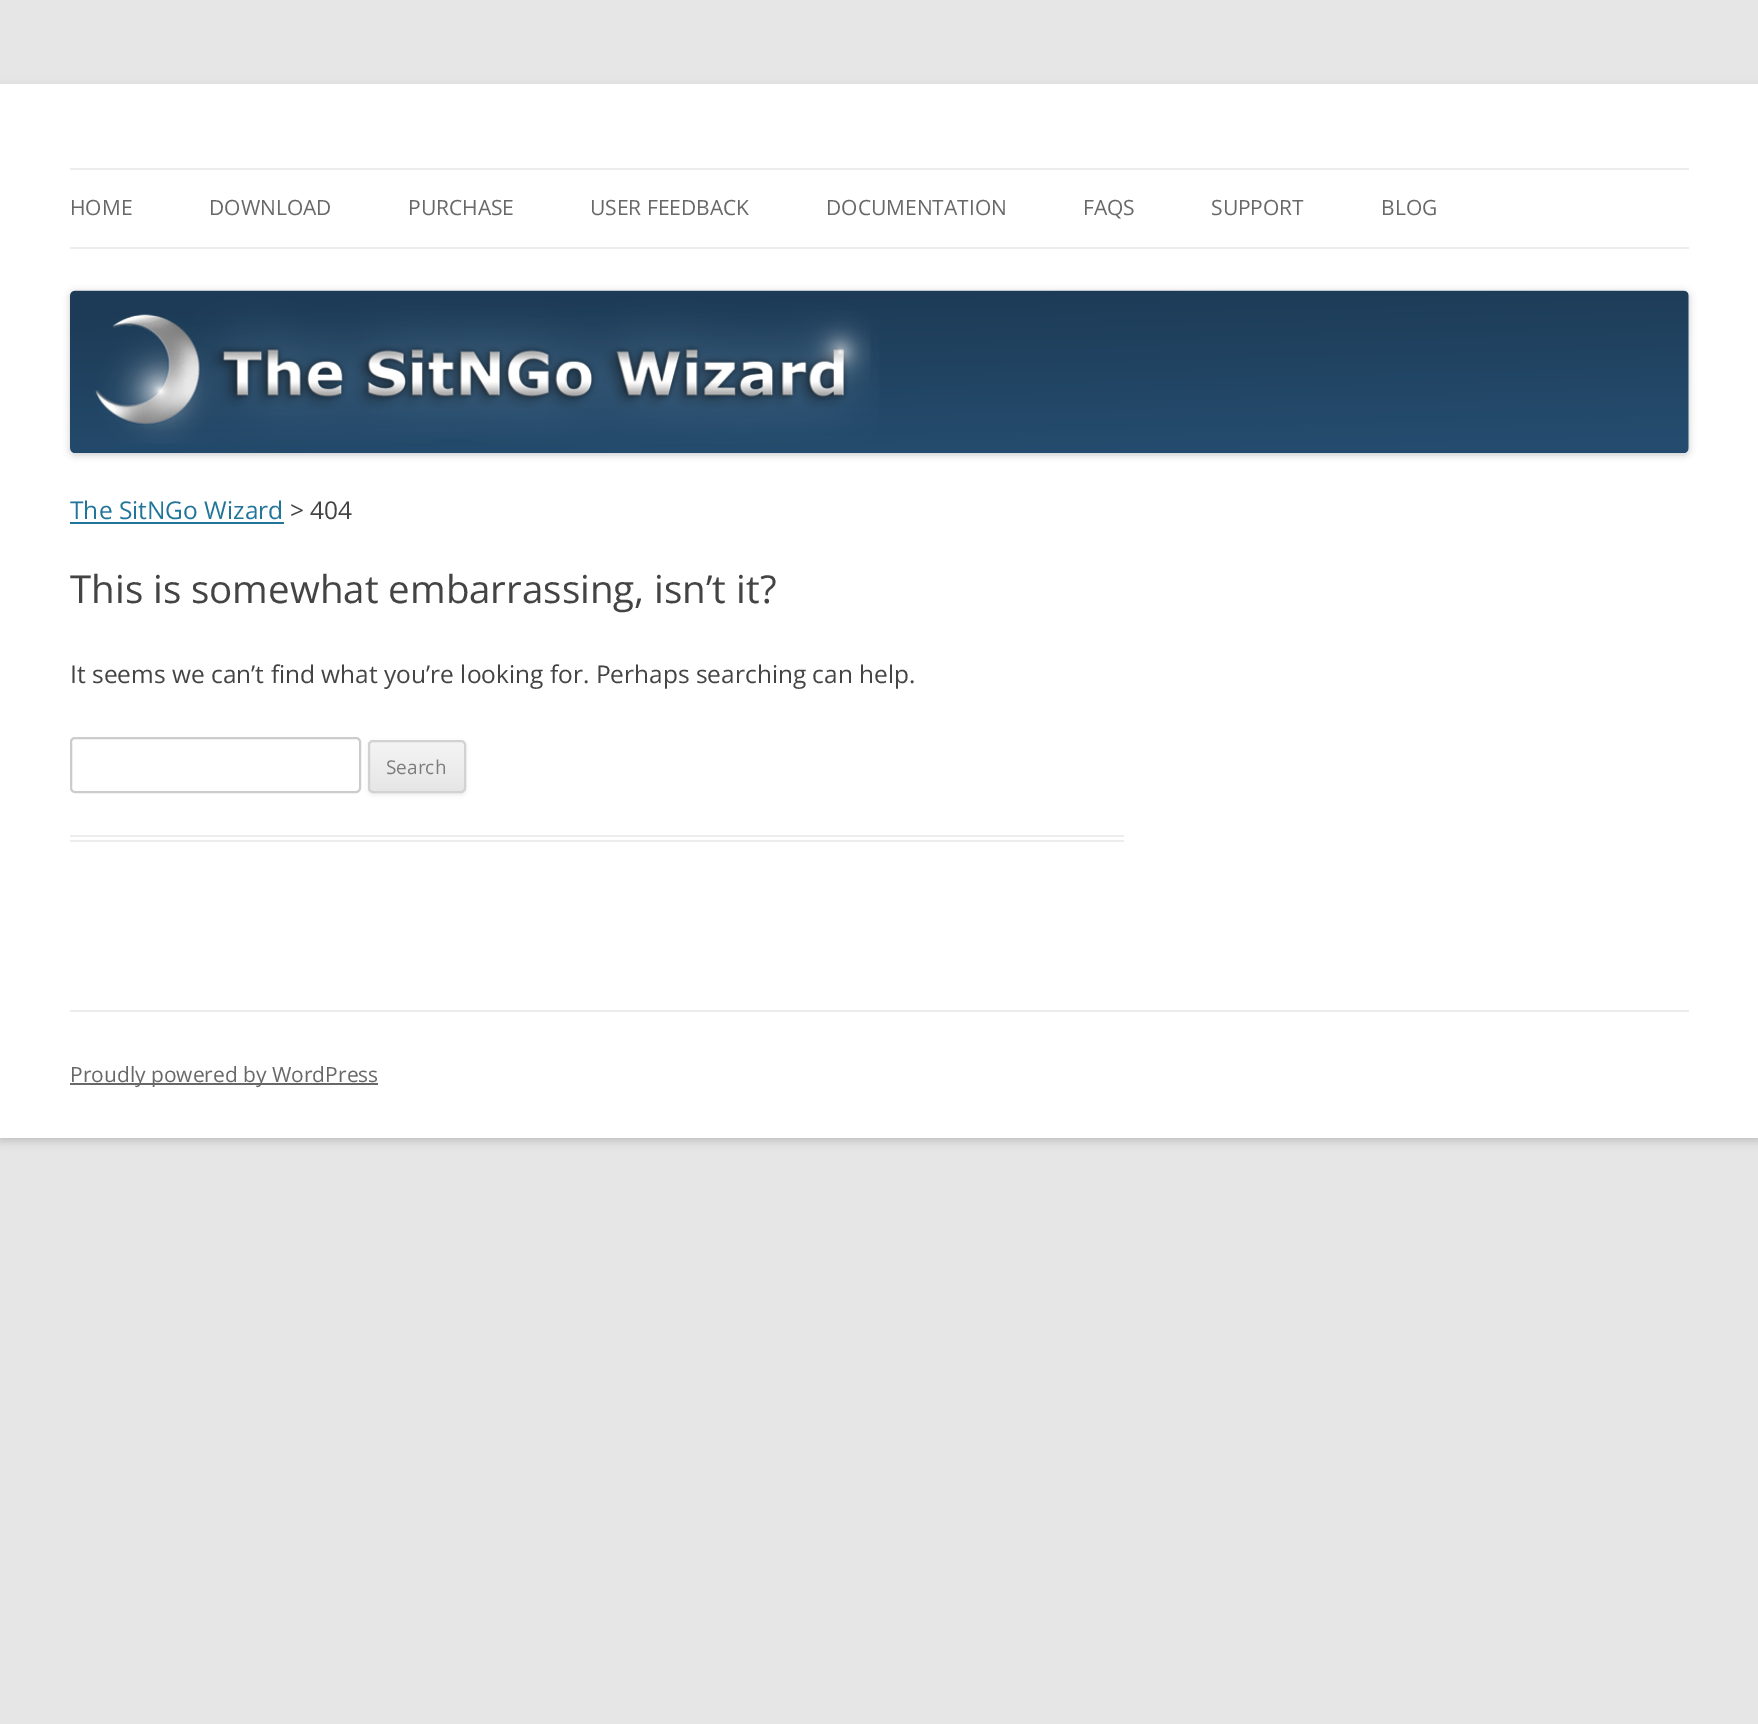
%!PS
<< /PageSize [1758 1724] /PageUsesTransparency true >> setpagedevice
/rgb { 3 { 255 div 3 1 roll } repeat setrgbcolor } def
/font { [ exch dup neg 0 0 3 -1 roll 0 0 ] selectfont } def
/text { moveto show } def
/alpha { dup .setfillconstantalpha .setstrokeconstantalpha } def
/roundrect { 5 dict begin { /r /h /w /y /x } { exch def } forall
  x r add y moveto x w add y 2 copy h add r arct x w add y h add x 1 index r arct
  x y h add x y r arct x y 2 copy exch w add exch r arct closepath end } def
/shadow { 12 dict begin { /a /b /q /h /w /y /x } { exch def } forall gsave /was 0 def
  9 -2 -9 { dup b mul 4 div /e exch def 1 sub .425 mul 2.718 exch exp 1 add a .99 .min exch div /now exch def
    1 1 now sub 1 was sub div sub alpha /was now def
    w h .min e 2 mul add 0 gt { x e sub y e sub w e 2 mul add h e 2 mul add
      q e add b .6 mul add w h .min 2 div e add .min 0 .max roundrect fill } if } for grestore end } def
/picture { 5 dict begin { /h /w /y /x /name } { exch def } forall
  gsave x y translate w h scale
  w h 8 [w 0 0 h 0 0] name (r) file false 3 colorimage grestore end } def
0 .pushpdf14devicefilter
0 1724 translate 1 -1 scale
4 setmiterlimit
230 230 230 rgb
0 0 1758 1724 rectfill
100 100 100 rgb
0 88 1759 1053 0 5 0.3 shadow
255 255 255 rgb
0 84 1758 1054 rectfill
237 237 237 rgb
70 168 1619 2 rectfill
70 247 1619 2 rectfill
0 0 0 rgb
70 292 1619 163 5 3.5 0.2 shadow
(img_01.rgb) 70 290 1619 164 picture
33 117 155 rgb
70 522 214 2 rectfill
237 237 237 rgb
70 835 1054 2 rectfill
70 840 1054 2 rectfill
204 204 204 rgb
2 setlinewidth
71 738 289 54 4 roundrect stroke
64 64 64 rgb
368 742 98 53 5 2 0.1 shadow
gsave
368 740 98 53 5 roundrect clip newpath
gsave 368 742 moveto 98 0 rlineto 0 49 rlineto -98 0 rlineto closepath clip newpath
<< /ShadingType 2 /ColorSpace /DeviceRGB /Coords [417 742 417 791] /Extend [true true] /Function << /FunctionType 2 /Domain [0 1] /C0 [0.957 0.957 0.957] /C1 [0.902 0.902 0.902] /N 1 >> >> shfill grestore
grestore
210 210 210 rgb
369 741 96 51 4 roundrect stroke
237 237 237 rgb
70 1010 1619 2 rectfill
104 104 104 rgb
70 1083 308 2 rectfill
/OpenSans-Regular 21 font
(HOME) 70 215 text
(DOWNLOAD) 209 215 text
(PURCHASE) 408 215 text
(USER FEEDBACK) 590 215 text
(DOCUMENTATION) 826 215 text
(FAQS) 1083 215 text
(SUPPORT) 1211 215 text
(BLOG) 1381 215 text
/OpenSans-Regular 24.5 font
33 117 155 rgb
(The SitNGo Wizard) 70 519 text
68 68 68 rgb
(> 404) 290 519 text
/OpenSans-Regular 38.5 font
(This is somewhat embarrassing, isn’t it?) 70 603 text
/OpenSans-Regular 24.5 font
(It seems we can’t find what you’re looking for. Perhaps searching can help.) 70 683 text
/OpenSans-Regular 19 font
124 124 124 rgb
(Search) 386 774 text
/OpenSans-Regular 21 font
104 104 104 rgb
(Proudly powered by WordPress) 70 1082 text
.poppdf14devicefilter showpage
